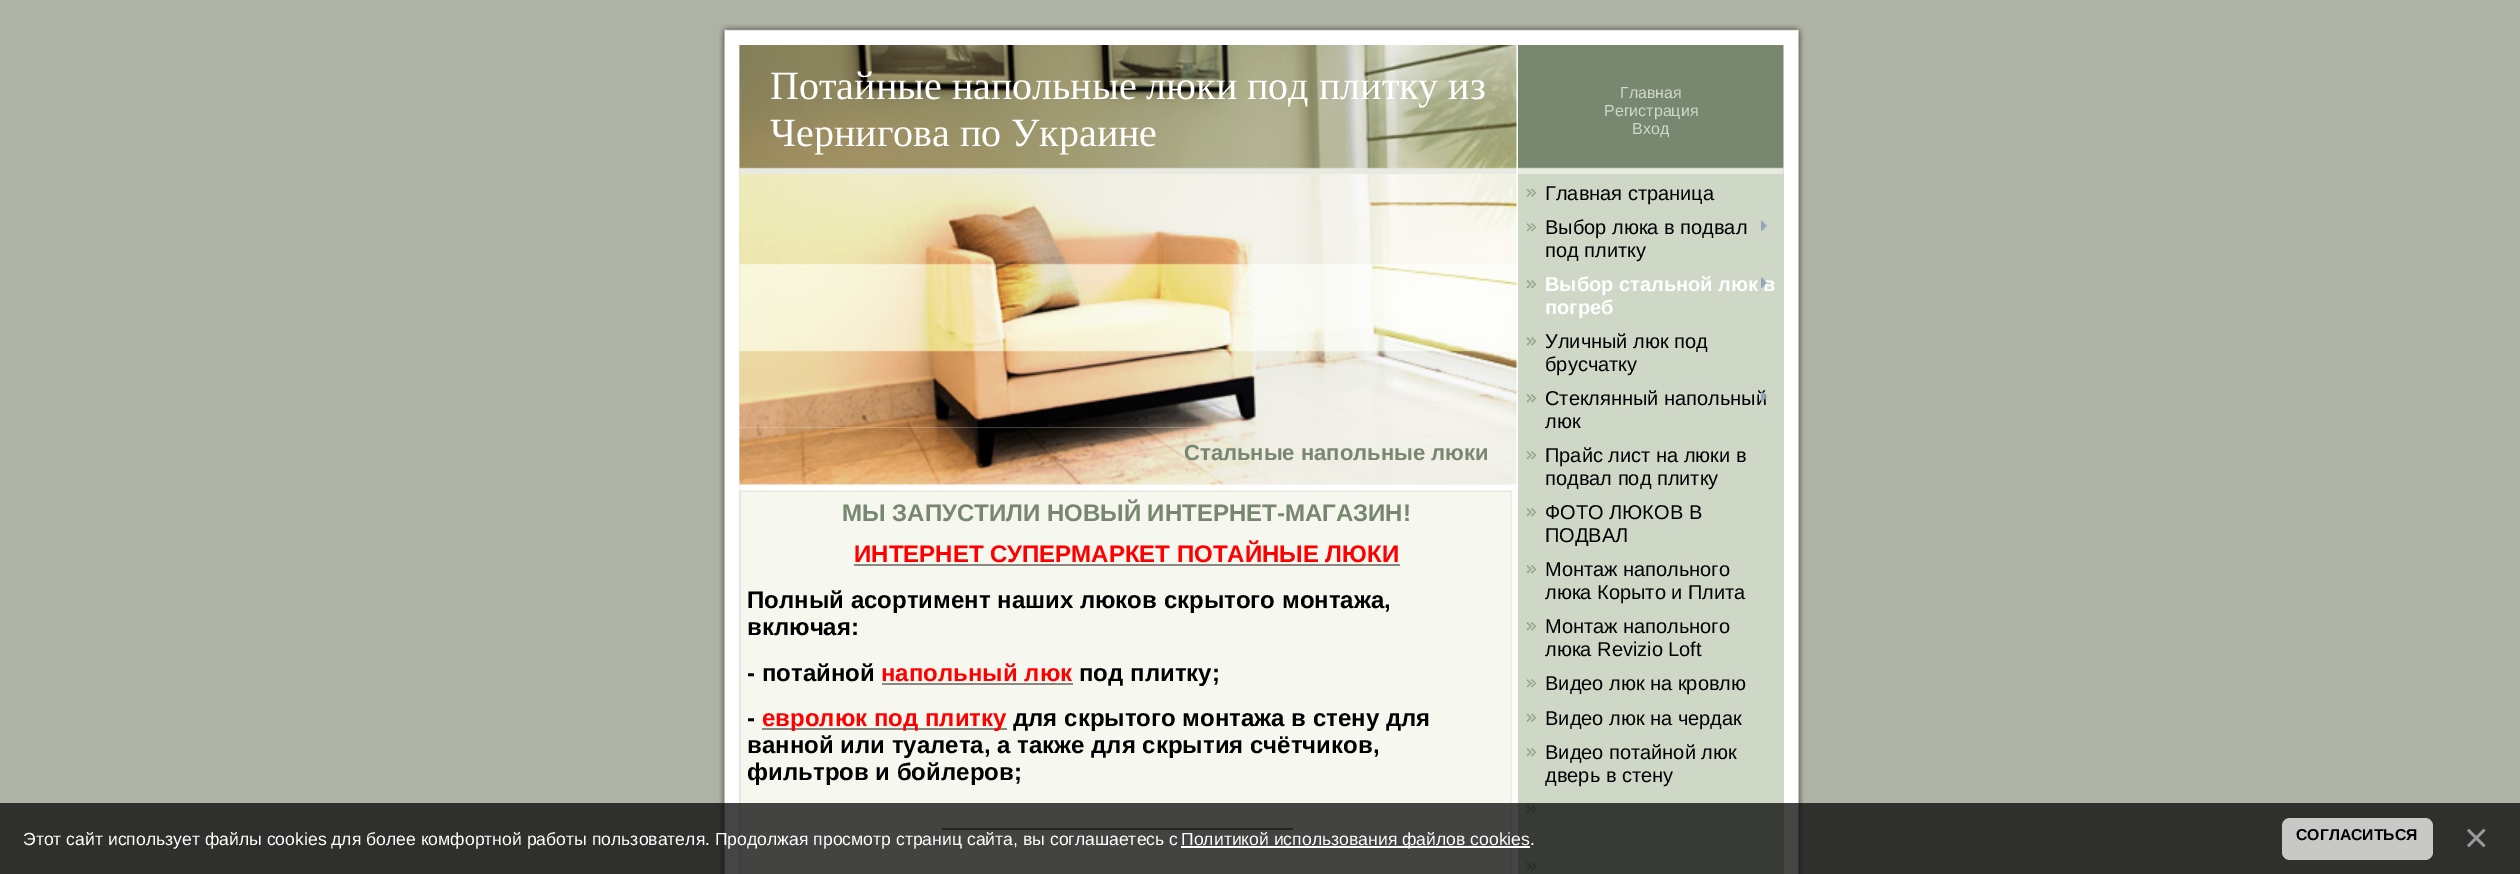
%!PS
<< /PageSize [2520 874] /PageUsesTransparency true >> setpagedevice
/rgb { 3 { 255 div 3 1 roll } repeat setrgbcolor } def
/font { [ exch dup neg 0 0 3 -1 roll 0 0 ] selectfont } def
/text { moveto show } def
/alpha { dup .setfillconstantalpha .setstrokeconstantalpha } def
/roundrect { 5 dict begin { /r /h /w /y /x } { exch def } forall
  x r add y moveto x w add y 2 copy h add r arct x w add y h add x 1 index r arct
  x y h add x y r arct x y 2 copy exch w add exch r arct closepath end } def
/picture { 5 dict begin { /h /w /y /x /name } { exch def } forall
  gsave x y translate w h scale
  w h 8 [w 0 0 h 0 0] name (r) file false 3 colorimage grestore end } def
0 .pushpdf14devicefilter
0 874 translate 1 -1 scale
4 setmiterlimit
175 179 165 rgb
0 0 2520 874 rectfill
(img_01.rgb) 719 24 1085 21 picture
(img_02.rgb) 719 45 21 829 picture
(img_03.rgb) 739 45 779 129 picture
120 135 112 rgb
1518 45 266 129 rectfill
(img_04.rgb) 1518 167 266 7 picture
(img_05.rgb) 1783 45 21 829 picture
(img_06.rgb) 739 174 779 700 picture
(img_08.rgb) 739 427 779 65 picture
(img_07.rgb) 739 174 779 254 picture
139 136 129 rgb
854 564 546 2 rectfill
882 683 191 2 rectfill
762 728 245 2 rectfill
942 828 351 2 rectfill
207 216 199 rgb
1518 174 266 700 rectfill
(img_09.rgb) 1526 188 11 9 picture
(img_10.rgb) 1526 223 11 9 picture
(img_11.rgb) 1761 220 6 11 picture
(img_10.rgb) 1526 280 11 9 picture
(img_10.rgb) 1526 337 11 9 picture
(img_10.rgb) 1526 394 11 9 picture
(img_10.rgb) 1526 451 11 9 picture
(img_10.rgb) 1526 508 11 9 picture
(img_10.rgb) 1526 565 11 9 picture
(img_10.rgb) 1526 622 11 9 picture
(img_10.rgb) 1526 679 11 9 picture
(img_09.rgb) 1526 713 11 9 picture
(img_10.rgb) 1526 748 11 9 picture
(img_10.rgb) 1526 805 11 9 picture
(img_10.rgb) 1526 862 11 9 picture
0.73 alpha
0 0 0 rgb
0 803 2520 71 rectfill
1 alpha
255 255 255 rgb
1181 846 349 2 rectfill
200 200 199 rgb
2282 818 151 42 8 roundrect fill
/LiberationSerif-Regular 40 font
255 255 255 rgb
(Потайные напольные люки под плитку из) 770 99 text
(Чернигова по Украине) 770 146 text
/LiberationSans-Regular 16 font
207 216 199 rgb
(Главная) 1620 98 text
(Регистрация) 1604 116 text
(Вход) 1632 134 text
/LiberationSans-Bold 22 font
120 135 112 rgb
(Стальные напольные люки) 1184 460 text
/LiberationSans-Bold 24 font
(МЫ ЗАПУСТИЛИ НОВЫЙ ИНТЕРНЕТ-МАГАЗИН!) 842 521 text
255 0 0 rgb
(ИНТЕРНЕТ СУПЕРМАРКЕТ ПОТАЙНЫЕ ЛЮКИ) 854 562 text
0 0 0 rgb
(Полный асортимент наших люков скрытого монтажа,) 747 608 text
(включая:) 747 635 text
(- потайной) 747 681 text
255 0 0 rgb
(напольный люк) 881 681 text
0 0 0 rgb
(под плитку;) 1079 681 text
(-) 747 726 text
255 0 0 rgb
(евролюк под плитку) 762 726 text
0 0 0 rgb
(для скрытого монтажа в стену для) 1013 726 text
(ванной или туалета, а также для скрытия счётчиков,) 747 753 text
(фильтров и бойлеров;) 747 780 text
/LiberationSans-Regular 20 font
(Главная страница) 1545 200 text
(Выбор люка в подвал) 1545 234 text
(под плитку) 1545 257 text
/LiberationSans-Bold 20 font
255 255 255 rgb
(Выбор стальной люк в) 1545 291 text
(img_12.rgb) 1761 277 6 11 picture
(погреб) 1545 314 text
/LiberationSans-Regular 20 font
0 0 0 rgb
(Уличный люк под) 1545 348 text
(брусчатку) 1545 371 text
(Стеклянный напольный) 1545 405 text
(img_13.rgb) 1761 391 6 11 picture
(люк) 1545 428 text
(Прайс лист на люки в) 1545 462 text
(подвал под плитку) 1545 485 text
(ФОТО ЛЮКОВ В) 1545 519 text
(ПОДВАЛ) 1545 542 text
(Монтаж напольного) 1545 576 text
(люка Корыто и Плита) 1545 599 text
(Монтаж напольного) 1545 633 text
(люка Revizio Loft) 1545 656 text
(Видео люк на кровлю) 1545 690 text
(Видео люк на чердак) 1545 725 text
(Видео потайной люк) 1545 759 text
(дверь в стену) 1545 782 text
/LiberationSans-Regular 17.6 font
255 255 255 rgb
(Этот сайт использует файлы cookies для более комфортной работы пользователя. Продолжая просмотр страниц сайта, вы соглашаетесь с) 23 845 text
(Политикой использования файлов cookies) 1181 845 text
(.) 1530 845 text
/LiberationSans-Bold 15.75 font
0 0 0 rgb
(СОГЛАСИТЬСЯ) 2296 840 text
/LiberationSans-Regular 42 font
153 153 153 rgb
(×) 2464 852 text
.poppdf14devicefilter showpage
